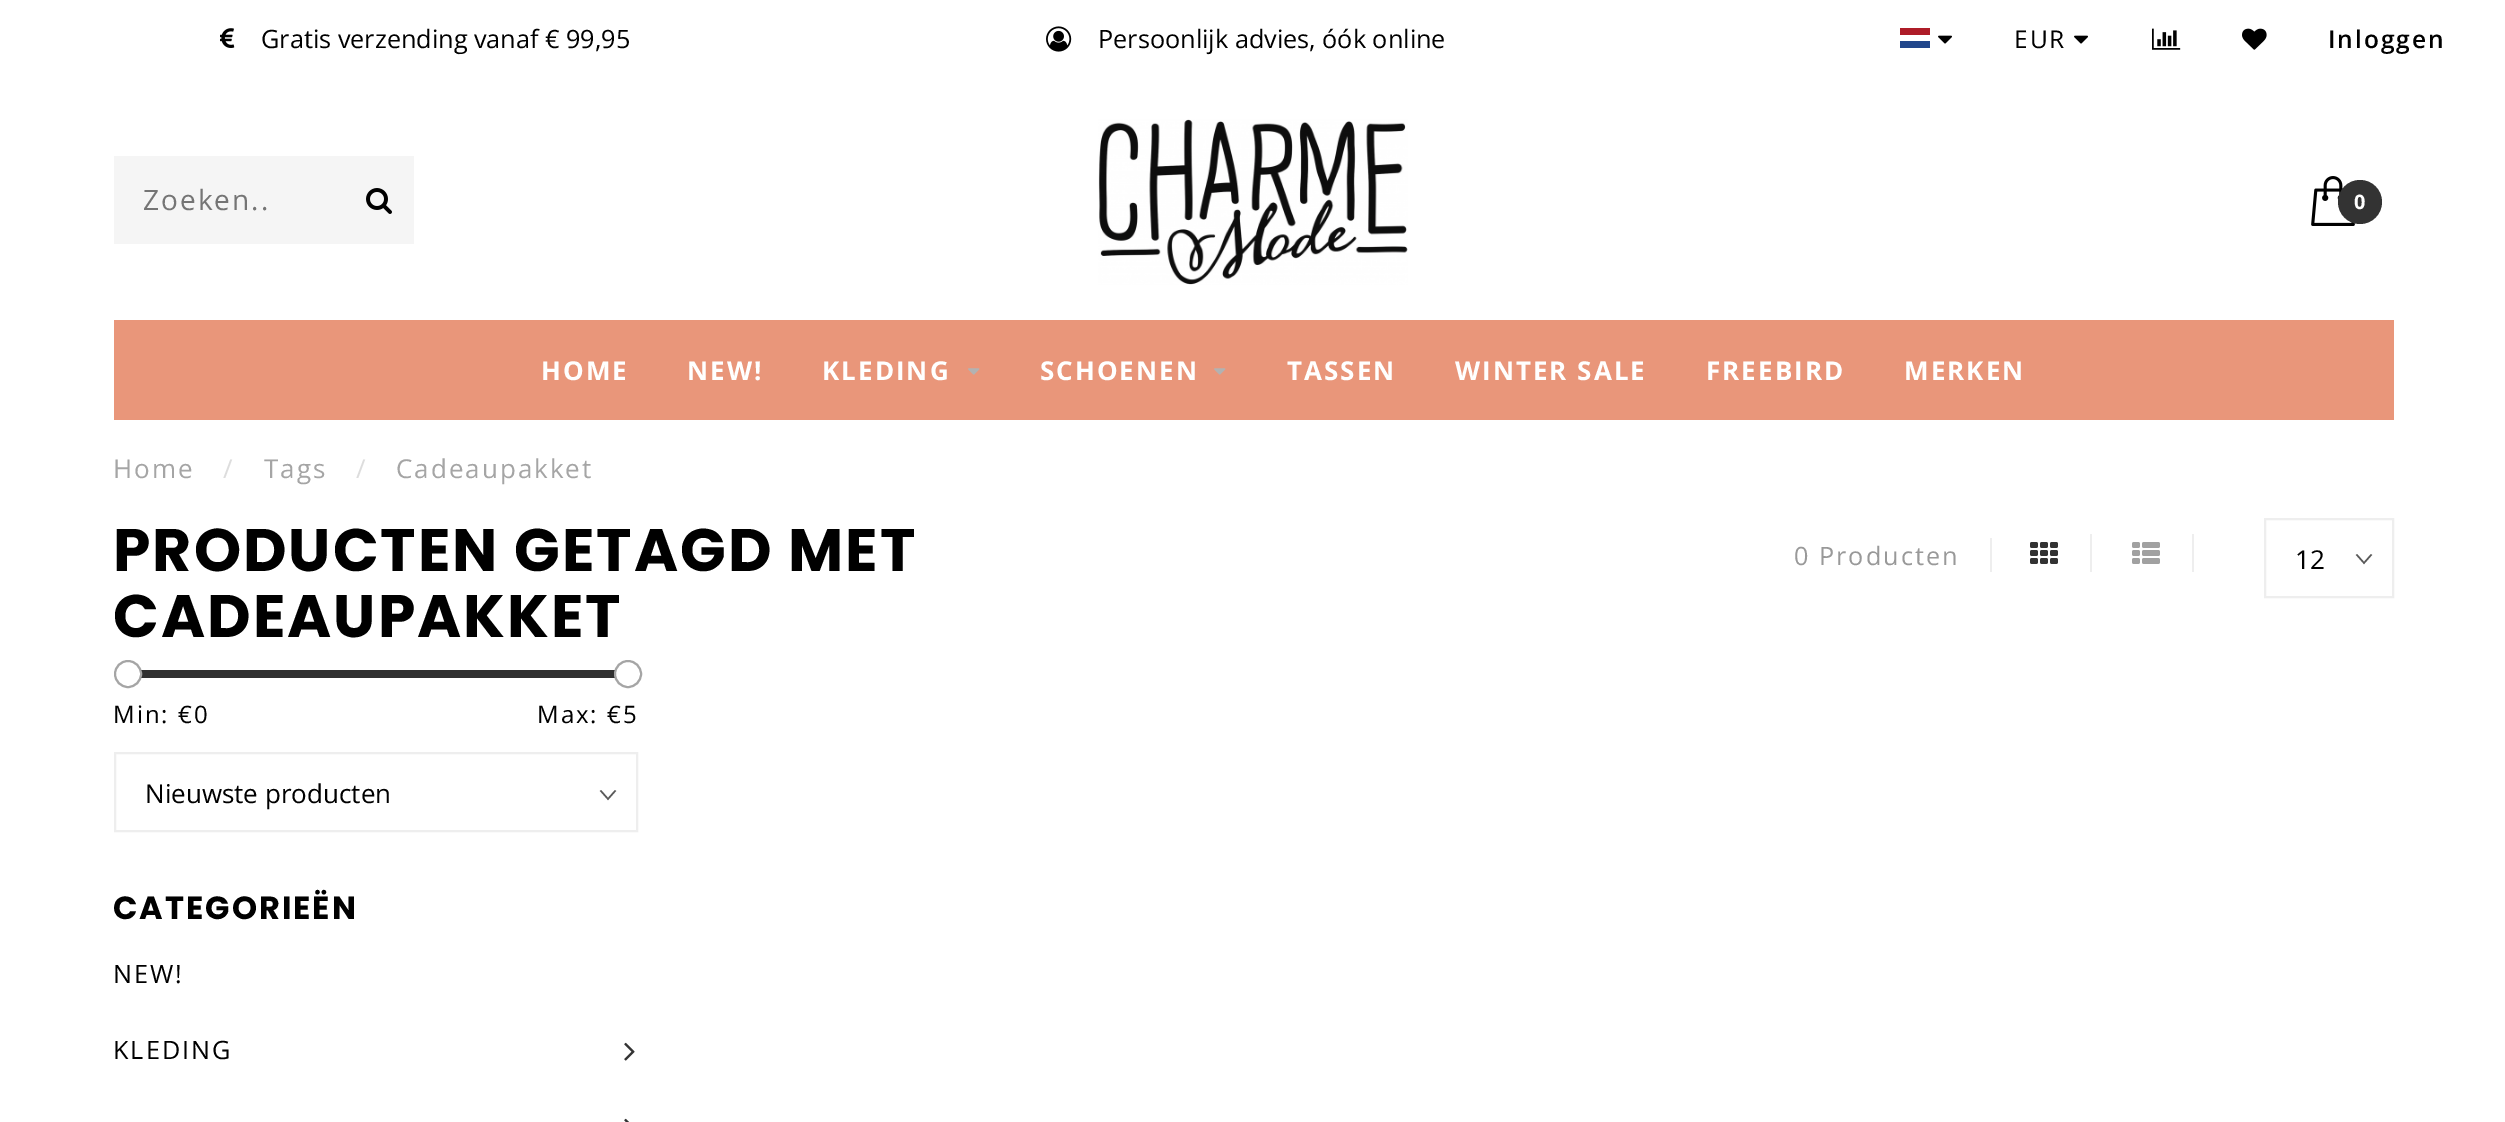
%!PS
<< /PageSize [2505 1122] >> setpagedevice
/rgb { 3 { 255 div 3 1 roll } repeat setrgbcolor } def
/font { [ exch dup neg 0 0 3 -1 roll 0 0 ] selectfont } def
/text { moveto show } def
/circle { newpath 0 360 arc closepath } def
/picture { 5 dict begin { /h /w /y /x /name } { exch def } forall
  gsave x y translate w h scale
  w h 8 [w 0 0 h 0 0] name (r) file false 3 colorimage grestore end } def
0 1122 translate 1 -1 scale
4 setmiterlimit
255 255 255 rgb
0 0 2505 1122 rectfill
(img_01.rgb) 220 28 15 20 picture
(img_02.rgb) 1046 26 26 26 picture
(img_03.rgb) 1900 28 30 20 picture
(img_04.rgb) 1938 35 14 9 picture
(img_04.rgb) 2074 35 14 9 picture
(img_05.rgb) 2152 28 29 22 picture
(img_06.rgb) 2242 28 25 22 picture
245 245 245 rgb
114 156 300 88 rectfill
(img_07.rgb) 366 188 26 26 picture
(img_08.rgb) 1098 119 310 166 picture
(img_09.rgb) 2311 176 44 50 picture
51 51 51 rgb
2360 202 22 circle fill
233 150 122 rgb
114 320 2280 100 rectfill
(img_10.rgb) 968 368 12 7 picture
(img_10.rgb) 1214 368 12 7 picture
238 238 238 rgb
1990 538 2 34 rectfill
2090 534 2 38 rectfill
(img_11.rgb) 2030 542 28 22 picture
2192 534 2 38 rectfill
(img_12.rgb) 2132 542 28 22 picture
89 89 89 rgb
1.5 setlinewidth
2371.5 554.5 moveto -7.5 8.5 rlineto -7.5 -8.5 rlineto stroke
238 238 238 rgb
2 setlinewidth
2265 519 128 78 rectstroke
48 48 48 rgb
134 670 481 8 rectfill
255 255 255 rgb
128 674 13 circle gsave fill grestore
165 165 165 rgb
stroke
255 255 255 rgb
628 674 13 circle gsave fill grestore
165 165 165 rgb
stroke
89 89 89 rgb
1.5 setlinewidth
615.5 790.5 moveto -7.5 8.5 rlineto -7.5 -8.5 rlineto stroke
238 238 238 rgb
2 setlinewidth
115 753 522 78 rectstroke
(img_13.rgb) 624 1042 11 19 picture
(img_14.rgb) 624 1118 5 4 picture
/OpenSans-Regular 25.25 font
0 0 0 rgb
(Gratis verzending vanaf € 99,95) 261 48 text
(Persoonlijk advies, óók online) 1098 48 text
/OpenSans-Regular 24.5 font
2014 48 moveto 2 0 (EUR) ashow
/OpenSans-SemiBold 24.5 font
2328 48 moveto 2 0 (Inloggen) ashow
/OpenSans-Regular 28 font
117 117 117 rgb
143 210 moveto 2 0 (Zoeken..) ashow
/OpenSans-Bold 20 font
255 255 255 rgb
2354 209 moveto 2 0 (0) ashow
/OpenSans-Bold 26 font
541 380 moveto 2 0 (HOME) ashow
687 380 moveto 2 0 (NEW!) ashow
822 380 moveto 2 0 (KLEDING) ashow
1040 380 moveto 2 0 (SCHOENEN) ashow
1287 380 moveto 2 0 (TASSEN) ashow
1455 380 moveto 2 0 (WINTER SALE) ashow
1706 380 moveto 2 0 (FREEBIRD) ashow
1904 380 moveto 2 0 (MERKEN) ashow
/OpenSans-Regular 26 font
165 165 165 rgb
113 478 moveto 2 0 (Home) ashow
221 221 221 rgb
223 478 moveto 2 0 (/) ashow
165 165 165 rgb
264 478 moveto 2 0 (Tags) ashow
221 221 221 rgb
356 478 moveto 2 0 (/) ashow
165 165 165 rgb
396 478 moveto 2 0 (Cadeaupakket) ashow
/Poppins-Bold 60 font
0 0 0 rgb
113 571 moveto 2 0 (PRODUCTEN GETAGD MET) ashow
113 637 moveto 2 0 (CADEAUPAKKET) ashow
/OpenSans-Regular 25.25 font
153 153 153 rgb
1794 565 moveto 2 0 (0 Producten) ashow
/OpenSans-Regular 26 font
0 0 0 rgb
(12) 2295 569 text
/OpenSans-Regular 24 font
113 723 moveto 2 0 (Min: €0) ashow
537 723 moveto 2 0 (Max: €5) ashow
/OpenSans-Regular 26 font
(Nieuwste producten) 145 803 text
/Poppins-Bold 32 font
113 919 moveto 2 0 (CATEGORIEËN) ashow
/OpenSans-Regular 25.25 font
113 983 moveto 2 0 (NEW!) ashow
113 1059 moveto 2 0 (KLEDING) ashow
showpage
